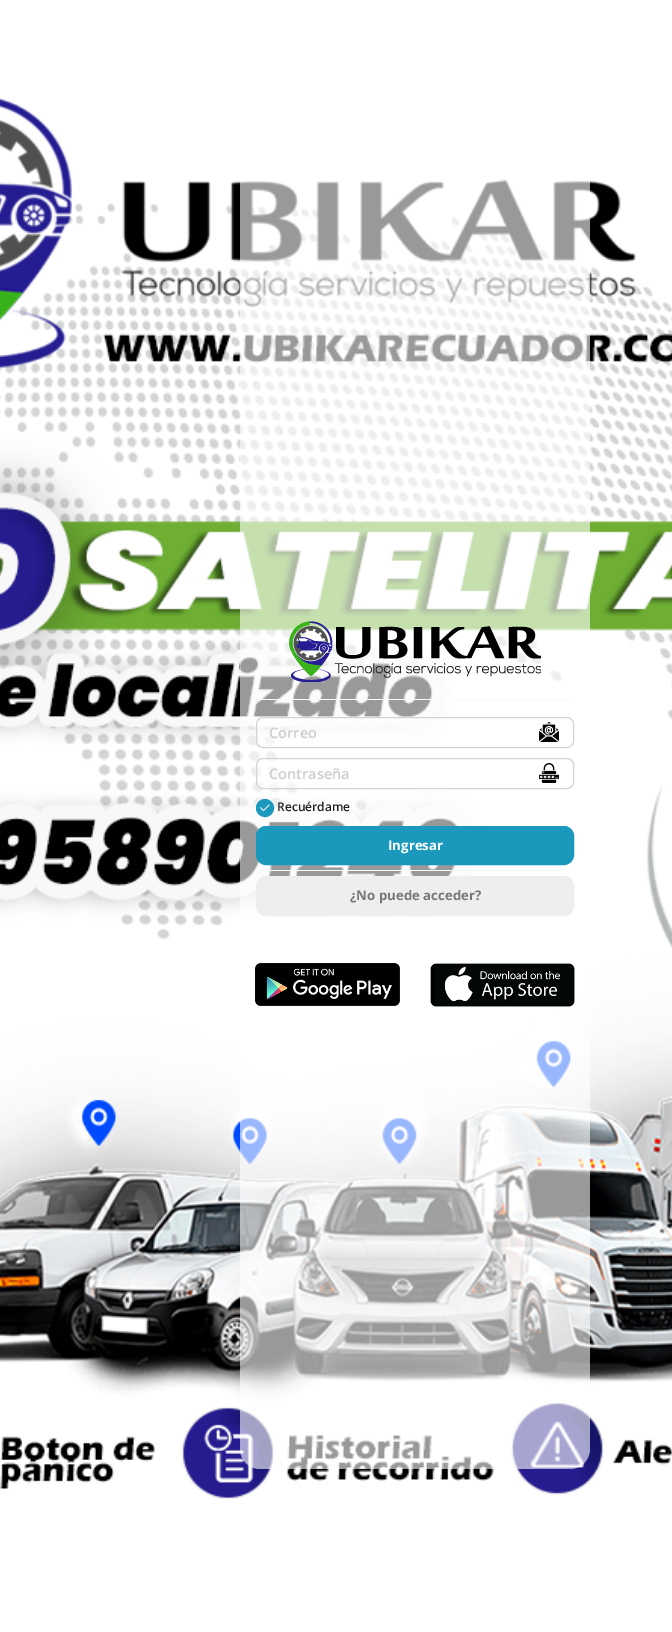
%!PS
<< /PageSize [672 1632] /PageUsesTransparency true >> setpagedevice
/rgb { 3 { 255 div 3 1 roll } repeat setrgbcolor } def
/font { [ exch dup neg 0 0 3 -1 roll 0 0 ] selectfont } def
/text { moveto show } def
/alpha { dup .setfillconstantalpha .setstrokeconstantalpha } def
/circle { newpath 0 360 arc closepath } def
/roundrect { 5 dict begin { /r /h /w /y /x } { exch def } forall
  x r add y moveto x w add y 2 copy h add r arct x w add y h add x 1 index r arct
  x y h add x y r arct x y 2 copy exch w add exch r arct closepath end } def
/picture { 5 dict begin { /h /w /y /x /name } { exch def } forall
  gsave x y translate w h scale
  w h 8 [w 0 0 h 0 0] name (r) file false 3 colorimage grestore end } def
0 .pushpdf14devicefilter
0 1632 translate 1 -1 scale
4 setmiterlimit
255 255 255 rgb
0 0 672 1632 rectfill
(img_01.rgb) 0 0 672 1632 picture
0.6 alpha
240 163 350 1306 20 roundrect fill
1 alpha
(img_02.rgb) 289 621 252 61 picture
249 249 249 rgb
256 699 318 1 rectfill
0.45 alpha
255 255 255 rgb
256 717 318 31 7 roundrect fill
1 alpha
(img_03.rgb) 539 722 20 20 picture
212 212 212 rgb
256.5 717.5 317 30 6.5 roundrect stroke
0.45 alpha
255 255 255 rgb
256 758 318 31 7 roundrect fill
1 alpha
(img_04.rgb) 539 763 20 20 picture
212 212 212 rgb
256.5 758.5 317 30 6.5 roundrect stroke
27 153 189 rgb
265 808 8.5 circle gsave fill grestore
stroke
(img_05.rgb) 260 804 10 8 picture
256.5 826.5 317 38 9.5 roundrect gsave fill grestore
stroke
249 249 249 rgb
261 870 308 1 rectfill
238 238 238 rgb
256.5 876.5 317 39 9.5 roundrect gsave fill grestore
stroke
(img_06.rgb) 255 963 145 43 picture
(img_07.rgb) 430 963 145 44 picture
/OpenSans-SemiBold 14.5 font
204 204 204 rgb
(Correo) 269 738 text
(Contraseña) 269 779 text
/OpenSans-SemiBold 12 font
32 32 32 rgb
(Recuérdame) 277 811 text
/OpenSans-Bold 13.25 font
255 255 255 rgb
(Ingresar) 388 850 text
119 119 119 rgb
(¿No puede acceder?) 350 900 text
.poppdf14devicefilter showpage
